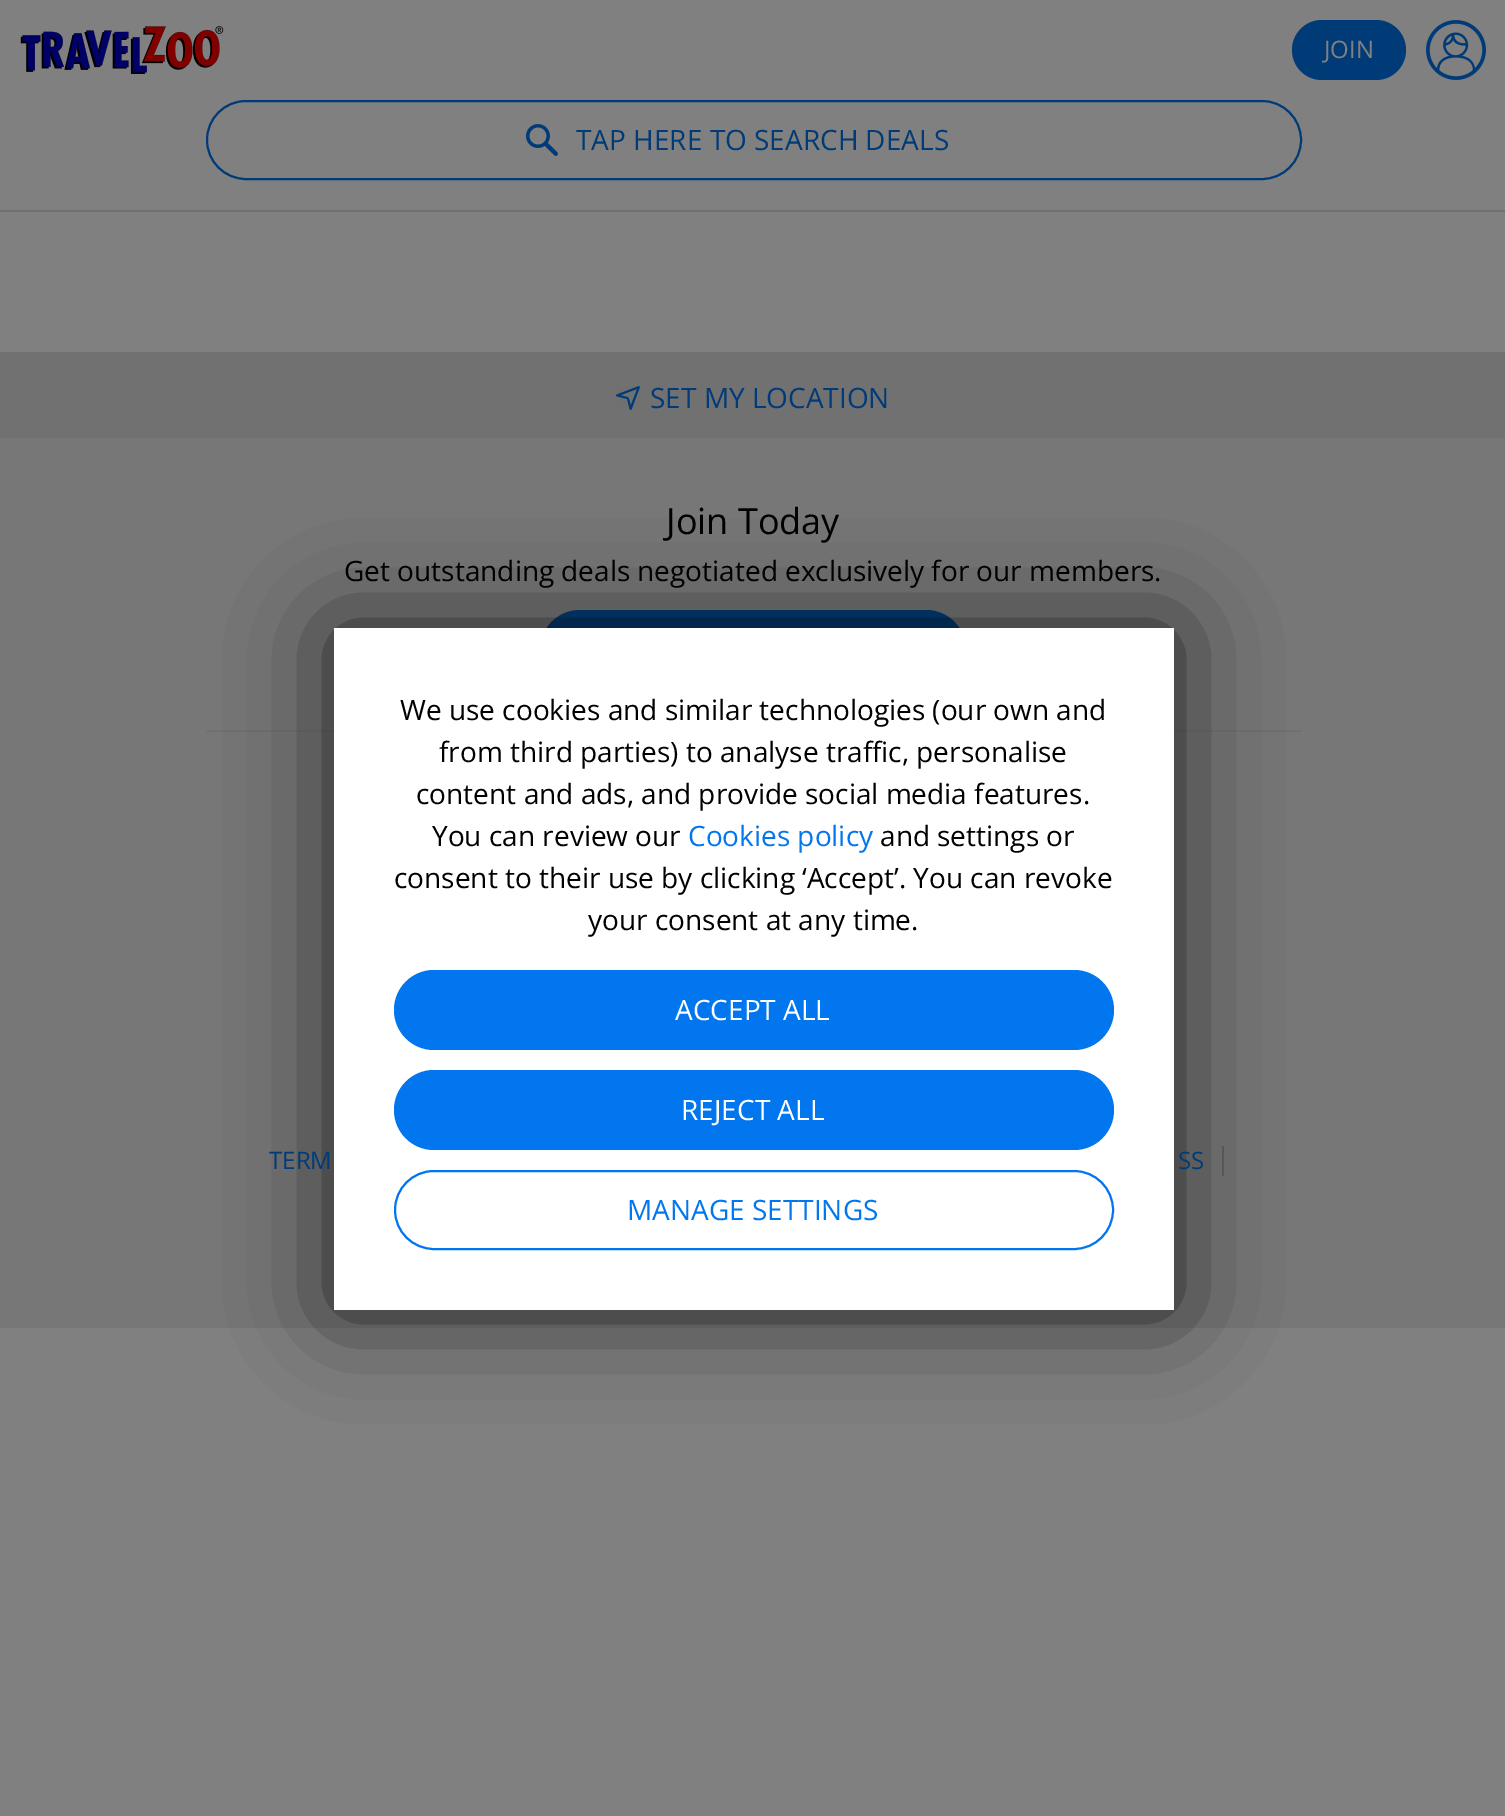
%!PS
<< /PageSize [1505 1816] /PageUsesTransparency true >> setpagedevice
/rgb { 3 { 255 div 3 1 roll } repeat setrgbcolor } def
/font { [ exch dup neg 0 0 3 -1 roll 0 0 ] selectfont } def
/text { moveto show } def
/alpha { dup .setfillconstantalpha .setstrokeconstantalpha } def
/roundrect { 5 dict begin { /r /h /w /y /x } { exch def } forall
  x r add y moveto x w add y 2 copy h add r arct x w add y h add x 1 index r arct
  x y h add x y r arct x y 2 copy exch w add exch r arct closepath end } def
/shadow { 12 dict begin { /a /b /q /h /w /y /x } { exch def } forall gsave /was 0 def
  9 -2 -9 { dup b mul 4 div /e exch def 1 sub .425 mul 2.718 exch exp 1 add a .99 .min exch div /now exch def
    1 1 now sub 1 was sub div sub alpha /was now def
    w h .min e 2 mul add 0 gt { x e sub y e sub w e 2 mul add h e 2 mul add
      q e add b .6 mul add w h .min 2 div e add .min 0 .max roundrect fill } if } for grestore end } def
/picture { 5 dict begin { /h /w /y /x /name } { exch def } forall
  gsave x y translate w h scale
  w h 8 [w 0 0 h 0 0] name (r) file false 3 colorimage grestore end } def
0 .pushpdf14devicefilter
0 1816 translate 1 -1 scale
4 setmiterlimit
128 128 128 rgb
0 0 1505 1816 rectfill
(img_01.rgb) 20 26 204 48 picture
1 59 119 rgb
1292 20 114 60 30 roundrect fill
(img_02.rgb) 1426 20 60 60 picture
113 113 113 rgb
0 210 1505 2 rectfill
1 59 119 rgb
2 setlinewidth
207 101 1094 78 39 roundrect stroke
(img_03.rgb) 526 124 32 32 picture
119 119 119 rgb
0 438 1505 890 rectfill
113 113 113 rgb
0 352 1505 86 rectfill
(img_04.rgb) 616 386 24 24 picture
206 730 1096 2 rectfill
1 59 119 rgb
540 610 426 80 40 roundrect fill
97 97 97 rgb
1222 1146 2 30 rectfill
0 0 0 rgb
334 630 840 682 0 50 0.7 shadow
255 255 255 rgb
334 628 840 682 rectfill
2 118 238 rgb
394 970 720 80 40 roundrect fill
394 1070 720 80 40 roundrect fill
395 1171 718 78 39 roundrect stroke
/OpenSans-Regular 24 font
128 128 128 rgb
(JOIN) 1324 58 text
/OpenSans-Regular 28 font
1 59 119 rgb
(TAP HERE TO SEARCH DEALS) 576 150 text
(SET MY LOCATION) 650 408 text
/OpenSans-Regular 36 font
0 0 0 rgb
(Join Today) 666 534 text
/OpenSans-Regular 28 font
(Get outstanding deals negotiated exclusively for our members.) 344 581 text
/OpenSans-Regular 24 font
1 59 119 rgb
(TERM) 269 1169 text
(SS) 1178 1169 text
/OpenSans-Regular 28 font
0 0 0 rgb
(We use cookies and similar technologies \(our own and) 400 720 text
(from third parties\) to analyse traffic, personalise) 439 762 text
(content and ads, and provide social media features.) 416 804 text
(You can review our) 432 846 text
2 118 238 rgb
(Cookies policy) 688 846 text
0 0 0 rgb
(and settings or) 880 846 text
(consent to their use by clicking ‘Accept’. You can revoke) 394 888 text
(your consent at any time.) 588 930 text
255 255 255 rgb
(ACCEPT ALL) 675 1020 text
(REJECT ALL) 681 1120 text
2 118 238 rgb
(MANAGE SETTINGS) 627 1220 text
.poppdf14devicefilter showpage
